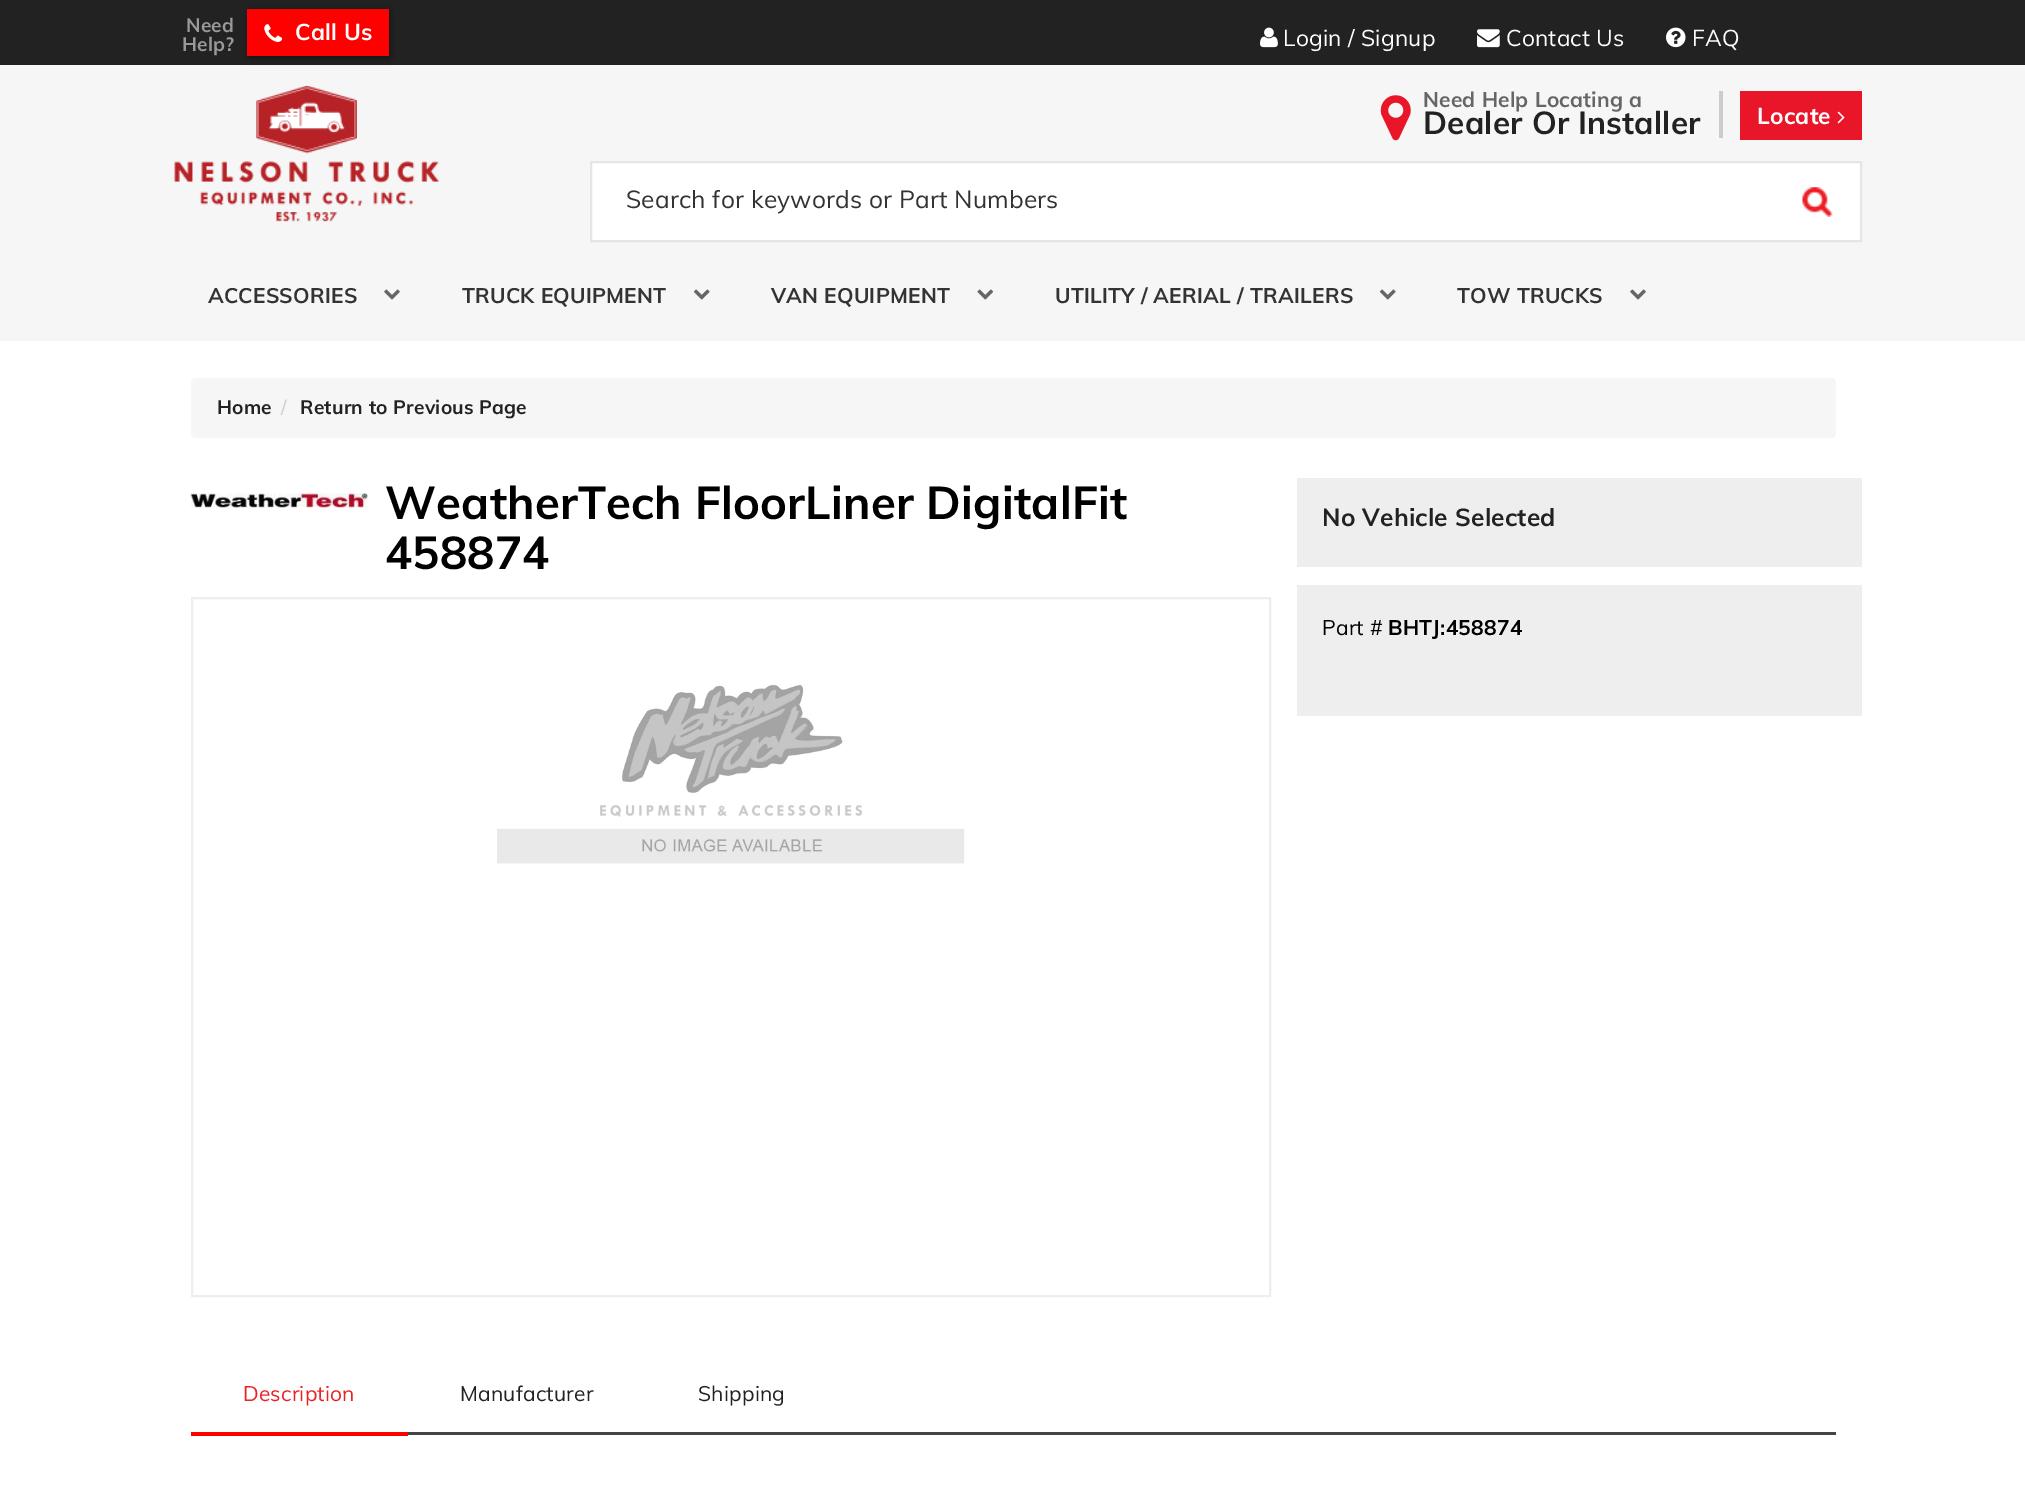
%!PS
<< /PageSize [2025 1496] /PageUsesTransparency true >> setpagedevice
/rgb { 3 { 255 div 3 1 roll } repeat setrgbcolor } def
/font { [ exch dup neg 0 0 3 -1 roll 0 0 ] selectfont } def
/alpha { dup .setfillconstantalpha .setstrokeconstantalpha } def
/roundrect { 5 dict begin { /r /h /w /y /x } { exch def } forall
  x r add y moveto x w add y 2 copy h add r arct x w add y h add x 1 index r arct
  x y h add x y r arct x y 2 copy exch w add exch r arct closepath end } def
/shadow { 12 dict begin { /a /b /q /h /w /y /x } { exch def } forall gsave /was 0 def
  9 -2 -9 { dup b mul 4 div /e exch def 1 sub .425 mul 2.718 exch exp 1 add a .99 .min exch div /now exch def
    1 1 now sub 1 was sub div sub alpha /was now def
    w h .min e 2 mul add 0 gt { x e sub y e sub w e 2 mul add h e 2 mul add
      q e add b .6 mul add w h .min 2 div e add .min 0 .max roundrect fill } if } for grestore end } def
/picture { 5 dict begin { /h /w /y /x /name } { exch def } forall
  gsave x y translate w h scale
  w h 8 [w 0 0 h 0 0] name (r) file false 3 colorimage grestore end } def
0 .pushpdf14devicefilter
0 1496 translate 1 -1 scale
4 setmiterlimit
255 255 255 rgb
0 0 2025 1496 rectfill
34 34 34 rgb
0 0 2025 65 rectfill
246 246 246 rgb
0 65 2025 276 rectfill
0 0 0 rgb
249 11 141 47 0 3.5 0.4 shadow
255 0 0 rgb
247 9 142 47 rectfill
(img_01.rgb) 264 24 19 18 picture
(img_02.rgb) 1260 27 18 21 picture
(img_03.rgb) 1477 29 23 19 picture
(img_04.rgb) 1666 27 20 21 picture
(img_05.rgb) 174 85 265 137 picture
(img_06.rgb) 1380 95 31 46 picture
204 204 204 rgb
1719 91 4 47 rectfill
232 22 40 rgb
1740 91 122 49 rectfill
(img_07.rgb) 1837 111 8 13 picture
255 255 255 rgb
591 162 moveto 1270 0 rlineto 0 79 rlineto -1270 0 rlineto closepath gsave fill grestore
230 229 229 rgb
2 setlinewidth
stroke
(img_08.rgb) 1802 187 31 30 picture
(img_09.rgb) 384 289 16 11 picture
(img_10.rgb) 693 289 17 11 picture
(img_11.rgb) 977 289 17 11 picture
(img_10.rgb) 1379 289 17 11 picture
(img_09.rgb) 1630 289 16 11 picture
246 246 246 rgb
191 378 1645 60 5 roundrect fill
(img_12.rgb) 190 493 178 15 picture
238 238 238 rgb
192 598 1078 698 rectstroke
(img_13.rgb) 497 684 468 180 picture
1297 478 565 89 rectfill
1297 585 565 131 rectfill
68 68 68 rgb
408 1432 1428 3 rectfill
255 0 0 rgb
191 1432 217 4 rectfill
/Muli-Bold 19.25 font
153 153 153 rgb
186 32 moveto 0.2 0 (Need) ashow
182 51 moveto 0.2 0 (Help?) ashow
/Muli-Bold 22.75 font
255 255 255 rgb
295 40 moveto 0.2 0 (Call Us) ashow
/Muli-Regular 22.75 font
1283 46 moveto 0.2 0 (Login / Signup) ashow
1506 46 moveto 0.2 0 (Contact Us) ashow
1692 46 moveto 0.2 0 (FAQ) ashow
/Muli-Bold 21 font
102 102 102 rgb
1423 107 moveto 0.2 0 (Need Help Locating a) ashow
/Muli-Bold 31.5 font
34 34 34 rgb
1423 134 moveto 0.2 0 (Dealer Or Installer) ashow
/Muli-Bold 22.75 font
255 255 255 rgb
1757 124 moveto 0.2 0 (Locate) ashow
/Muli-Regular 24.5 font
51 51 51 rgb
626 208 moveto 0.2 0 (Search for keywords or Part Numbers) ashow
/Muli-Bold 21 font
208 303 moveto 0.2 0 (ACCESSORIES) ashow
462 303 moveto 0.2 0 (TRUCK EQUIPMENT) ashow
771 303 moveto 0.2 0 (VAN EQUIPMENT) ashow
1055 303 moveto 0.2 0 (UTILITY / AERIAL / TRAILERS) ashow
1457 303 moveto 0.2 0 (TOW TRUCKS) ashow
/Muli-Bold 19.25 font
34 34 34 rgb
217 414 moveto 0.2 0 (Home) ashow
/Muli-Regular 19.25 font
204 204 204 rgb
281 414 moveto 0.2 0 (/) ashow
/Muli-Bold 19.25 font
34 34 34 rgb
300 414 moveto 0.2 0 (Return to Previous Page) ashow
/Muli-Bold 45.5 font
0 0 0 rgb
385 519 moveto 0.2 0 (WeatherTech FloorLiner DigitalFit) ashow
385 569 moveto 0.2 0 (458874) ashow
/Muli-Bold 24.5 font
34 34 34 rgb
1322 526 moveto 0.2 0 (No Vehicle Selected) ashow
/Muli-Regular 21 font
0 0 0 rgb
1322 635 moveto 0.2 0 (Part #) ashow
/Muli-Bold 21 font
1388 635 moveto 0.2 0 (BHTJ:458874) ashow
/Muli-Regular 21 font
232 35 40 rgb
243 1401 moveto 0.2 0 (Description) ashow
34 34 34 rgb
460 1401 moveto 0.2 0 (Manufacturer) ashow
698 1401 moveto 0.2 0 (Shipping) ashow
.poppdf14devicefilter showpage
